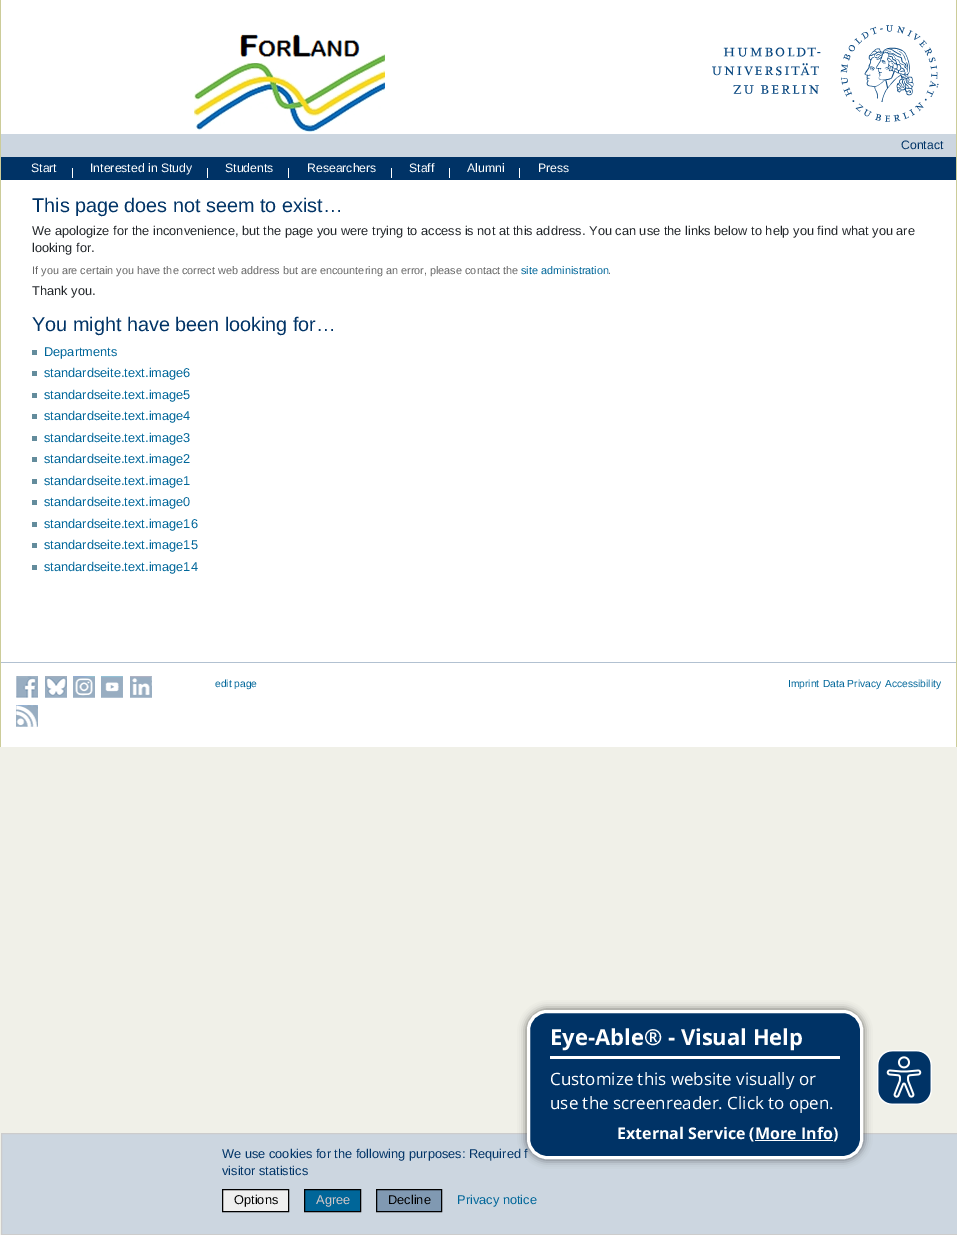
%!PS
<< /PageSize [957 1235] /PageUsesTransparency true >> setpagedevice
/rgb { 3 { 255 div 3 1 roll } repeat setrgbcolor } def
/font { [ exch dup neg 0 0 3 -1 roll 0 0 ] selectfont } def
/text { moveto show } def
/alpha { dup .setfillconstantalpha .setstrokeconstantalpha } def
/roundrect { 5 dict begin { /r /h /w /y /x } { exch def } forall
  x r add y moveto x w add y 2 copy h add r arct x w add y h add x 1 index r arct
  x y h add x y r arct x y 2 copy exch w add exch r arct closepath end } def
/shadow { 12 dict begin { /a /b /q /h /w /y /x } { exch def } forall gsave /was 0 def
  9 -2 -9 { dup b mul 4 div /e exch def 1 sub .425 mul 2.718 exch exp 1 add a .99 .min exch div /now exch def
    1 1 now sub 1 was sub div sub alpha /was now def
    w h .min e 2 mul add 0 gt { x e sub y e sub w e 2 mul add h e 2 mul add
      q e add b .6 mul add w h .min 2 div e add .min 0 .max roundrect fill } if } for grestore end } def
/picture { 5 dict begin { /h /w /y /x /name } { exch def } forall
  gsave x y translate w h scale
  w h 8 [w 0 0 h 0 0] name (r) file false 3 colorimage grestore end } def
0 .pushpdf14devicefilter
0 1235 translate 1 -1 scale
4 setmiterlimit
240 240 232 rgb
0 0 957 1235 rectfill
255 255 255 rgb
1 0 955 747 rectfill
(img_01.rgb) 192 24 360 110 picture
(img_02.rgb) 712 25 227 97 picture
204 204 153 rgb
956 0 1 747 rectfill
0 0 1 747 rectfill
204 214 224 rgb
1 134 955 23 rectfill
0 51 102 rgb
1 157 955 23 rectfill
255 255 255 rgb
72 168 1 10 rectfill
207 168 1 10 rectfill
288 168 1 10 rectfill
391 168 1 10 rectfill
449 168 1 10 rectfill
519 168 1 10 rectfill
99 140 156 rgb
32 350 5 5 rectfill
32 371 5 5 rectfill
32 393 5 5 rectfill
32 414 5 5 rectfill
32 436 5 5 rectfill
32 457 5 5 rectfill
32 479 5 5 rectfill
32 500 5 5 rectfill
32 522 5 5 rectfill
32 543 5 5 rectfill
32 565 5 5 rectfill
178 193 209 rgb
1 662 955 1 rectfill
(img_03.rgb) 16 676 22 22 picture
(img_04.rgb) 45 676 22 22 picture
(img_05.rgb) 73 676 22 22 picture
(img_06.rgb) 101 676 22 22 picture
(img_07.rgb) 130 676 22 22 picture
(img_08.rgb) 16 705 22 22 picture
204 214 224 rgb
1.5 1133.5 moveto 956 0 rlineto 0 101 rlineto -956 0 rlineto closepath gsave fill grestore
204 204 204 rgb
stroke
239 239 239 rgb
222.5 1189.5 moveto 66 0 rlineto 0 22 rlineto -66 0 rlineto closepath gsave fill grestore
0 0 0 rgb
stroke
0 102 153 rgb
304.5 1189.5 moveto 56 0 rlineto 0 22 rlineto -56 0 rlineto closepath gsave fill grestore
0 0 0 rgb
stroke
128 153 178 rgb
376.5 1189.5 moveto 65 0 rlineto 0 22 rlineto -65 0 rlineto closepath gsave fill grestore
0 0 0 rgb
stroke
526 1009 338 151 21 4 0.5 shadow
0 51 102 rgb
528.5 1011.5 333 146 18.5 roundrect gsave fill grestore
255 255 255 rgb
3 setlinewidth
stroke
550 1056 290 3 rectfill
755 1140 78 1 rectfill
(img_09.rgb) 877 1050 55 55 picture
/LiberationSans-Regular 12.25 font
0 51 102 rgb
(Contact) 901 149 text
255 255 255 rgb
(Start) 31 172 text
(Interested in Study) 90 172 text
(Students) 225 172 text
(Researchers) 307 172 text
(Staff) 409 172 text
(Alumni) 467 172 text
(Press) 538 172 text
/LiberationSans-Regular 19.8 font
0 51 102 rgb
(This page does not seem to exist…) 32 212 text
/LiberationSans-Regular 12.8 font
33 37 41 rgb
(We apologize for the inconvenience, but the page you were trying to access is not at this address. You can use the links below to help you find what you are) 32 235 text
(looking for.) 32 252 text
/LiberationSans-Regular 10.9 font
102 102 102 rgb
(If you are certain you have the correct web address but are encountering an error, please contact the) 32 274 text
0 102 153 rgb
(site administration) 521 274 text
102 102 102 rgb
(.) 608 274 text
/LiberationSans-Regular 12.8 font
33 37 41 rgb
(Thank you.) 32 295 text
/LiberationSans-Regular 19.8 font
0 51 102 rgb
(You might have been looking for…) 32 331 text
/LiberationSans-Regular 12.8 font
0 102 153 rgb
(Departments) 44 356 text
(standardseite.text.image6) 44 377 text
(standardseite.text.image5) 44 399 text
(standardseite.text.image4) 44 420 text
(standardseite.text.image3) 44 442 text
(standardseite.text.image2) 44 463 text
(standardseite.text.image1) 44 485 text
(standardseite.text.image0) 44 506 text
(standardseite.text.image16) 44 528 text
(standardseite.text.image15) 44 549 text
(standardseite.text.image14) 44 571 text
/LiberationSans-Regular 10.25 font
(edit page) 215 687 text
(Imprint) 788 687 text
(Data Privacy) 823 687 text
(Accessibility) 885 687 text
/LiberationSans-Regular 12.8 font
0 51 102 rgb
(We use cookies for the following purposes: Required f) 222 1158 text
(visitor statistics) 222 1175 text
0 0 0 rgb
(Options) 234 1204 text
213 199 199 rgb
(Agree) 316 1204 text
0 0 0 rgb
(Decline) 388 1204 text
0 102 153 rgb
(Privacy notice) 457 1204 text
/OpenSans-Bold 22 font
255 255 255 rgb
(Eye-Able® - Visual Help) 550 1045 text
/OpenSans-Regular 17 font
(Customize this website visually or) 550 1085 text
(use the screenreader. Click to open.) 550 1109 text
/OpenSans-Bold 16 font
(External Service \(More Info\)) 617 1139 text
.poppdf14devicefilter showpage
